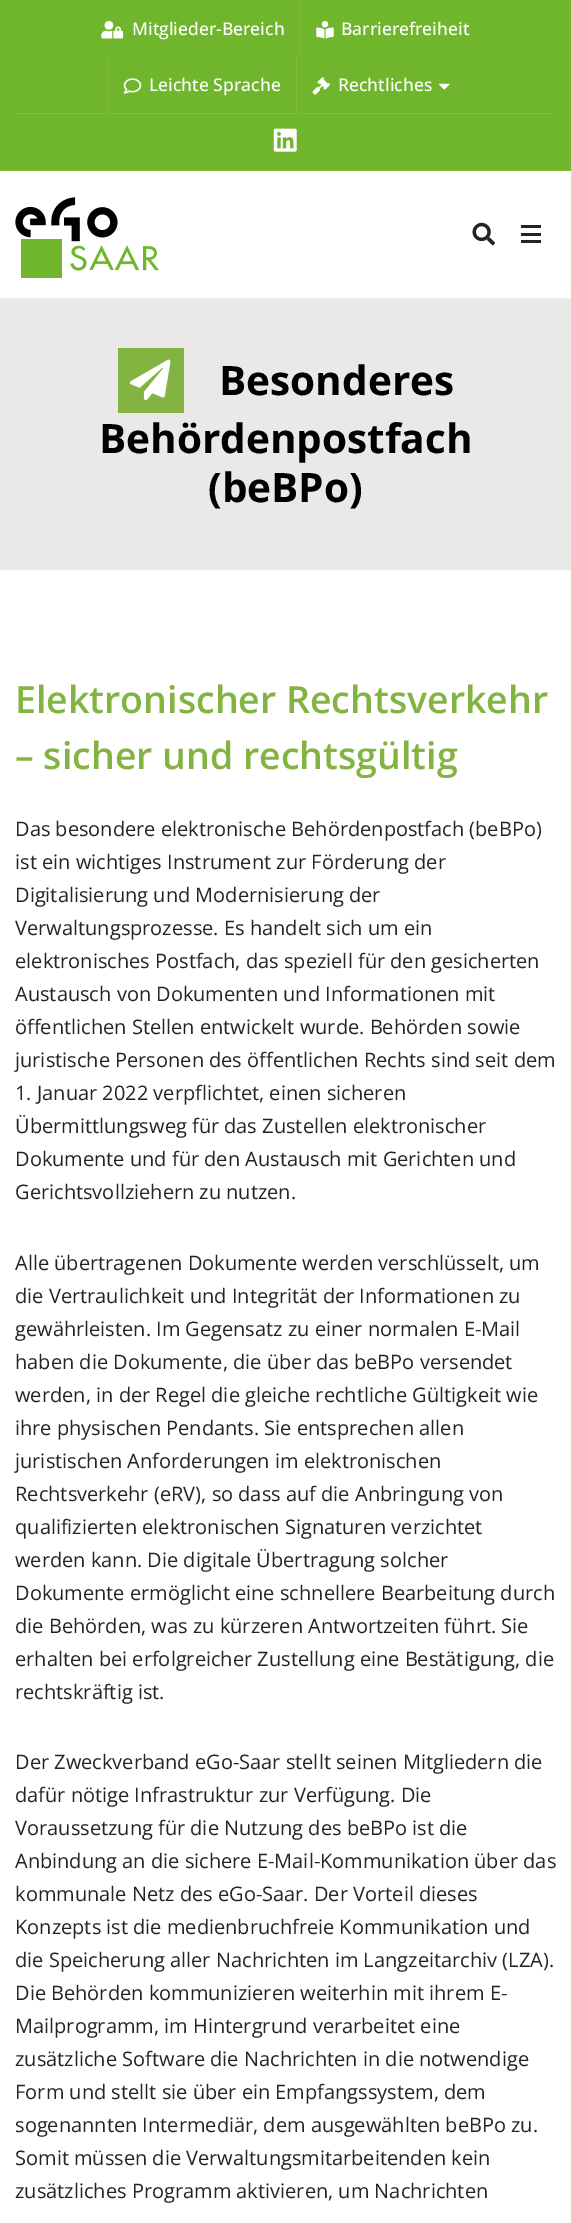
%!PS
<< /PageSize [571 2223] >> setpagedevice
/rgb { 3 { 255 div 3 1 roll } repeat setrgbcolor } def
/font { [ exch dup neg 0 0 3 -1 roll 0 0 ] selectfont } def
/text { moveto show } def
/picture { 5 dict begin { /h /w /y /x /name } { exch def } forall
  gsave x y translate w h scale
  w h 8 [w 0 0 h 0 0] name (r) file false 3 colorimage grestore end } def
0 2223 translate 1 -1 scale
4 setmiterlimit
255 255 255 rgb
0 0 571 2223 rectfill
112 182 44 rgb
0 0 571 170 rectfill
126 189 65 rgb
0 170 571 1 rectfill
15 113 541 1 rectfill
(img_01.rgb) 101 20 23 19 picture
300 0 1 56 rectfill
(img_02.rgb) 316 21 18 18 picture
108 56 1 57 rectfill
(img_03.rgb) 123 78 19 16 picture
296 56 1 57 rectfill
(img_04.rgb) 312 77 18 18 picture
(img_05.rgb) 439 83 11 7 picture
(img_06.rgb) 273 128 24 24 picture
(img_07.rgb) 15 197 144 81 picture
(img_08.rgb) 472 222 23 24 picture
33 37 41 rgb
521 233 20 3 rectfill
521 225 20 3 rectfill
521 240 20 3 rectfill
235 232 232 rgb
0 298 571 272 rectfill
131 179 65 rgb
118 348 66 65 rectfill
(img_09.rgb) 130 359 41 41 picture
/OpenSans-Medium 17.5 font
255 255 255 rgb
(Mitglieder-Bereich) 132 35 text
(Barrierefreiheit) 341 35 text
(Leichte Sprache) 149 91 text
(Rechtliches) 338 91 text
/OpenSans-Bold 40.5 font
0 0 0 rgb
(Besonderes) 219 395 text
(Behördenpostfach) 99 453 text
(\(beBPo\)) 208 502 text
/OpenSans-SemiBold 37.5 font
131 179 65 rgb
(Elektronischer Rechtsverkehr) 15 713 text
(– sicher und rechtsgültig) 15 769 text
/OpenSans-Regular 20 font
33 37 41 rgb
(Das besondere elektronische Behördenpostfach \(beBPo\)) 15 836 text
(ist ein wichtiges Instrument zur Förderung der) 15 869 text
(Digitalisierung und Modernisierung der) 15 902 text
(Verwaltungsprozesse. Es handelt sich um ein) 15 935 text
(elektronisches Postfach, das speziell für den gesicherten) 15 968 text
(Austausch von Dokumenten und Informationen mit) 15 1001 text
(öffentlichen Stellen entwickelt wurde. Behörden sowie) 15 1034 text
(juristische Personen des öffentlichen Rechts sind seit dem) 15 1067 text
(1. Januar 2022 verpflichtet, einen sicheren) 15 1100 text
(Übermittlungsweg für das Zustellen elektronischer) 15 1133 text
(Dokumente und für den Austausch mit Gerichten und) 15 1166 text
(Gerichtsvollziehern zu nutzen.) 15 1199 text
(Alle übertragenen Dokumente werden verschlüsselt, um) 15 1270 text
(die Vertraulichkeit und Integrität der Informationen zu) 15 1303 text
(gewährleisten. Im Gegensatz zu einer normalen E-Mail) 15 1336 text
(haben die Dokumente, die über das beBPo versendet) 15 1369 text
(werden, in der Regel die gleiche rechtliche Gültigkeit wie) 15 1402 text
(ihre physischen Pendants. Sie entsprechen allen) 15 1435 text
(juristischen Anforderungen im elektronischen) 15 1468 text
(Rechtsverkehr \(eRV\), so dass auf die Anbringung von) 15 1501 text
(qualifizierten elektronischen Signaturen verzichtet) 15 1534 text
(werden kann. Die digitale Übertragung solcher) 15 1567 text
(Dokumente ermöglicht eine schnellere Bearbeitung durch) 15 1600 text
(die Behörden, was zu kürzeren Antwortzeiten führt. Sie) 15 1633 text
(erhalten bei erfolgreicher Zustellung eine Bestätigung, die) 15 1666 text
(rechtskräftig ist.) 15 1699 text
(Der Zweckverband eGo-Saar stellt seinen Mitgliedern die) 15 1769 text
(dafür nötige Infrastruktur zur Verfügung. Die) 15 1802 text
(Voraussetzung für die Nutzung des beBPo ist die) 15 1835 text
(Anbindung an die sichere E-Mail-Kommunikation über das) 15 1868 text
(kommunale Netz des eGo-Saar. Der Vorteil dieses) 15 1901 text
(Konzepts ist die medienbruchfreie Kommunikation und) 15 1934 text
(die Speicherung aller Nachrichten im Langzeitarchiv \(LZA\).) 15 1967 text
(Die Behörden kommunizieren weiterhin mit ihrem E-) 15 2000 text
(Mailprogramm, im Hintergrund verarbeitet eine) 15 2033 text
(zusätzliche Software die Nachrichten in die notwendige) 15 2066 text
(Form und stellt sie über ein Empfangssystem, dem) 15 2099 text
(sogenannten Intermediär, dem ausgewählten beBPo zu.) 15 2132 text
(Somit müssen die Verwaltungsmitarbeitenden kein) 15 2165 text
(zusätzliches Programm aktivieren, um Nachrichten) 15 2198 text
showpage
